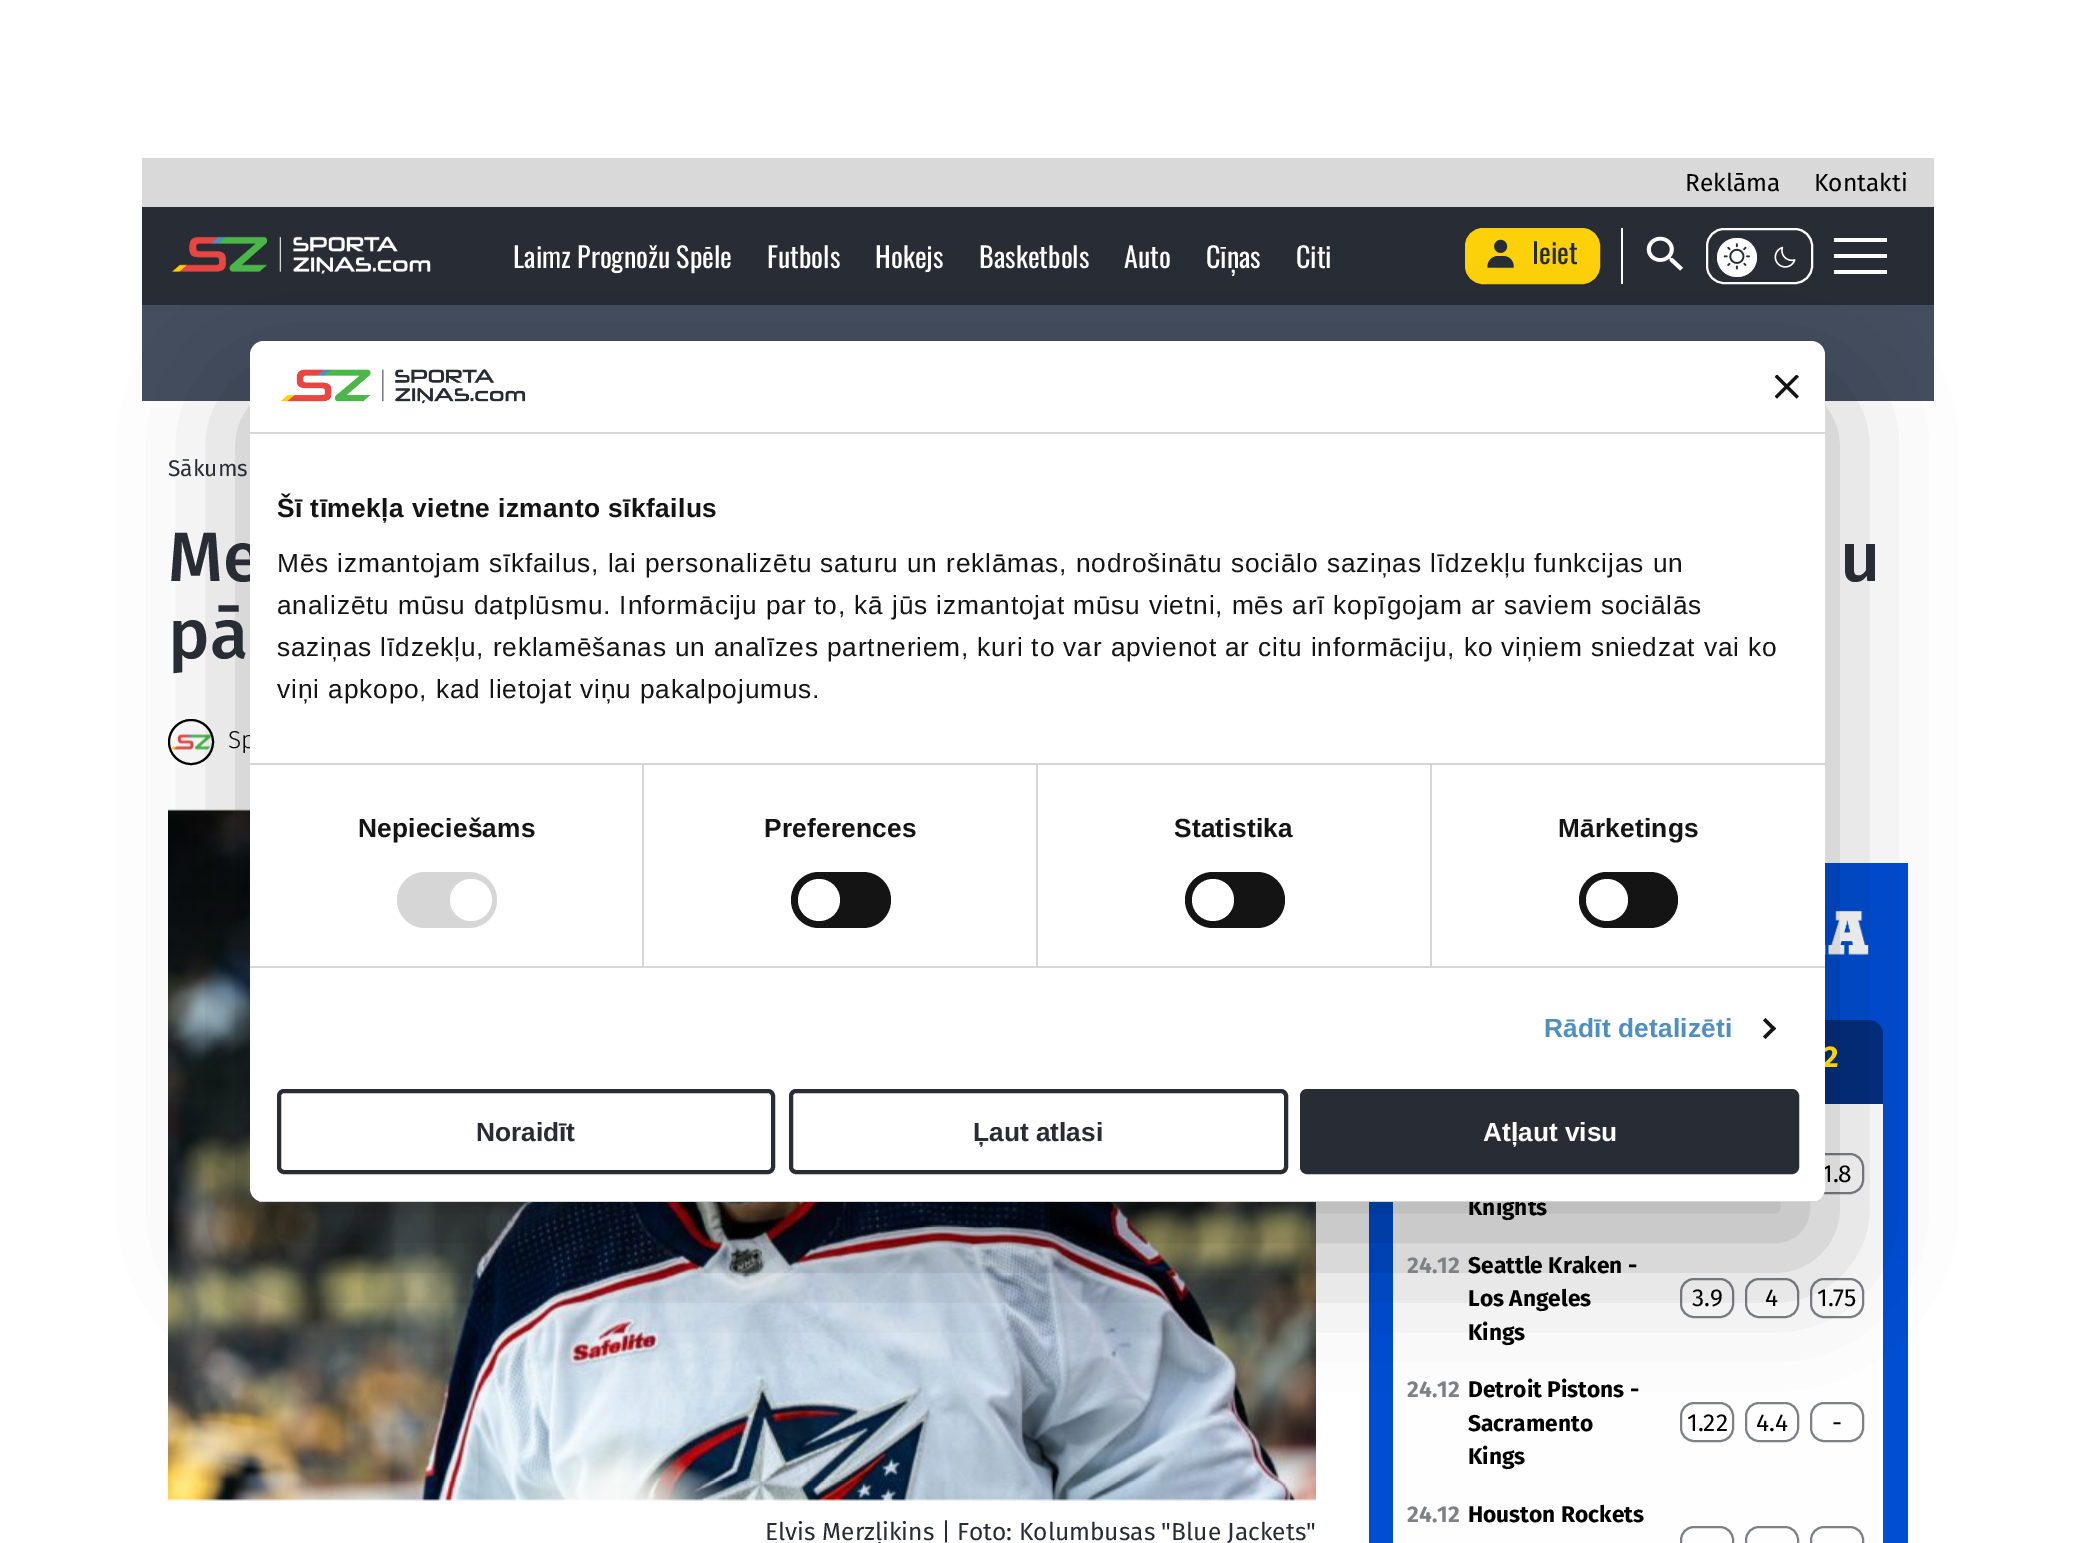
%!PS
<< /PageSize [2074 1543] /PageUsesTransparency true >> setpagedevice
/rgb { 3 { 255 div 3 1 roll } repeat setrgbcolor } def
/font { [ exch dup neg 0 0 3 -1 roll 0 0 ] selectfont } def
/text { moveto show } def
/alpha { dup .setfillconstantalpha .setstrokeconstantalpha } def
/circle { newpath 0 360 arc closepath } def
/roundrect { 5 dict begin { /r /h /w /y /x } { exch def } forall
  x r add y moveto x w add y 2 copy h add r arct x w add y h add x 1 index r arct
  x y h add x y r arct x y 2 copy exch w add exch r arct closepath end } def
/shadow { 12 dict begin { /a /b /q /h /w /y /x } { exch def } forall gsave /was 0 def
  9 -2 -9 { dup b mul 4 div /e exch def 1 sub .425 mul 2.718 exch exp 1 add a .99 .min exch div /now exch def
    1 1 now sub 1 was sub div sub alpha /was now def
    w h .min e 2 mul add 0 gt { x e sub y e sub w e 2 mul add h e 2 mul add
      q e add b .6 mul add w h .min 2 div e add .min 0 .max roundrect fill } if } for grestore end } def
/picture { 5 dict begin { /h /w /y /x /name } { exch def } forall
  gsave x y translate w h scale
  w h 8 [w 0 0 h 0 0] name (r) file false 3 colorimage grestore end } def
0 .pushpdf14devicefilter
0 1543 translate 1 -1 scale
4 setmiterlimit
255 255 255 rgb
0 0 2074 1543 rectfill
217 217 217 rgb
142 158 1792 49 rectfill
39 44 53 rgb
142 207 1792 98 rectfill
(img_01.rgb) 172 236 259 38 picture
253 209 10 rgb
1466 229 133 54 17 roundrect gsave fill grestore
2 setlinewidth
stroke
(img_02.rgb) 1487 239 27 29 picture
254 254 254 rgb
1621 228 2 56 rectfill
(img_03.rgb) 1646 236 38 35 picture
1707 229 105 54 17 roundrect stroke
1717 238 40 39 19.5 roundrect fill
(img_04.rgb) 1723 243 27 27 picture
(img_05.rgb) 1774 246 22 22 picture
1834 238 53 4 rectfill
1834 254 53 4 rectfill
1834 270 53 4 rectfill
69 78 94 rgb
142 305 1792 96 rectfill
(img_06.rgb) 170 734 41 16 picture
0 0 0 rgb
191 742 22 circle stroke
0 78 210 rgb
1369 863 539 680 rectfill
(img_07.rgb) 1825 910 44 45 picture
3 47 127 rgb
1407 1020 moveto 462 0 rlineto 7.5 0 14 6.5 14 14 rcurveto 0 70 rlineto -490 0 rlineto 0 -70 rlineto 0 -7.5 6.5 -14 14 -14 rcurveto closepath fill
254 254 254 rgb
1393 1104 490 439 rectfill
125 128 133 rgb
1811 1154 52 39 13 roundrect stroke
1681 1279 52 38 13 roundrect stroke
1746 1279 52 38 13 roundrect stroke
1811 1279 52 38 13 roundrect stroke
1681 1403 52 38 13 roundrect stroke
1746 1403 52 38 13 roundrect stroke
1811 1403 52 38 13 roundrect stroke
1681 1527 52 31 13 roundrect stroke
1746 1527 52 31 13 roundrect stroke
1811 1527 52 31 13 roundrect stroke
(img_08.rgb) 168 809 1148 692 picture
0 0 0 rgb
250 397 1575 861 14 59.5 0.3 shadow
/FiraSans-Regular 24.5 font
(Reklāma) 1685 191 text
(Kontakti) 1814 191 text
/Oswald-Regular 28 font
254 254 254 rgb
(Laimz Prognožu Spēle) 513 268 text
(Futbols) 767 268 text
(Hokejs) 875 268 text
(Basketbols) 979 268 text
(Auto) 1124 268 text
(Cīņas) 1206 268 text
(Citi) 1296 268 text
39 44 53 rgb
(Ieiet) 1532 264 text
/FiraSans-Regular 22.75 font
(Sākums) 168 476 text
/FiraSans-Medium 70 font
(Me) 168 581 text
(u) 1840 581 text
(pā) 168 658 text
/FiraSans-Light 24.5 font
0 0 0 rgb
(Sp) 228 748 text
/FiraSans-Bold 30 font
253 210 10 rgb
(2) 1823 1067 text
/FiraSans-Regular 24.5 font
0 0 0 rgb
(1.8) 1822 1182 text
/FiraSans-Bold 22.75 font
(Knights) 1468 1215 text
125 128 133 rgb
(24.12) 1407 1273 text
0 0 0 rgb
(Seattle Kraken -) 1468 1273 text
(Los Angeles) 1468 1306 text
(Kings) 1468 1340 text
/FiraSans-Regular 24.5 font
(3.9) 1692 1306 text
(4) 1765 1306 text
(1.75) 1817 1306 text
/FiraSans-Bold 22.75 font
125 128 133 rgb
(24.12) 1407 1397 text
0 0 0 rgb
(Detroit Pistons -) 1468 1397 text
(Sacramento) 1468 1431 text
(Kings) 1468 1464 text
/FiraSans-Regular 24.5 font
(1.22) 1687 1431 text
(4.4) 1756 1431 text
(-) 1832 1431 text
/FiraSans-Bold 22.75 font
125 128 133 rgb
(24.12) 1407 1522 text
0 0 0 rgb
(Houston Rockets) 1468 1522 text
/FiraSans-Regular 24.5 font
39 44 53 rgb
(Elvis Merzļikins | Foto: Kolumbusas "Blue Jackets") 765 1540 text
255 255 255 rgb
250 341 1575 861 14 roundrect fill
214 214 214 rgb
250 432 1575 2 rectfill
(img_09.rgb) 280 369 246 35 picture
(img_10.rgb) 1775 375 24 24 picture
250 763 1575 2 rectfill
/LiberationSans-Bold 26.25 font
20 20 20 rgb
277 517 moveto 0.45 0 (Šī tīmekļa vietne izmanto sīkfailus) ashow
/LiberationSans-Regular 26.25 font
277 572 moveto 0.88 0 (Mēs izmantojam sīkfailus, lai personalizētu saturu un reklāmas, nodrošinātu sociālo saziņas līdzekļu funkcijas un) ashow
277 614 moveto 0.88 0 (analizētu mūsu datplūsmu. Informāciju par to, kā jūs izmantojat mūsu vietni, mēs arī kopīgojam ar saviem sociālās) ashow
277 656 moveto 0.88 0 (saziņas līdzekļu, reklamēšanas un analīzes partneriem, kuri to var apvienot ar citu informāciju, ko viņiem sniedzat vai ko) ashow
277 698 moveto 0.88 0 (viņi apkopo, kad lietojat viņu pakalpojumus.) ashow
214 214 214 rgb
250 966 1575 2 rectfill
642 765 2 201 rectfill
/LiberationSans-Bold 26.25 font
20 20 20 rgb
358 837 moveto 0.2 0 (Nepieciešams) ashow
214 214 214 rgb
397 872 100 56 28 roundrect fill
255 255 255 rgb
471 900 21 circle fill
214 214 214 rgb
1036 765 2 201 rectfill
20 20 20 rgb
764 837 moveto 0.2 0 (Preferences) ashow
791 872 100 56 28 roundrect fill
255 255 255 rgb
819 900 21 circle fill
214 214 214 rgb
1430 765 2 201 rectfill
20 20 20 rgb
1174 837 moveto 0.2 0 (Statistika) ashow
1185 872 100 56 28 roundrect fill
255 255 255 rgb
1213 900 21 circle fill
20 20 20 rgb
1558 837 moveto 0.2 0 (Mārketings) ashow
1579 872 99 56 28 roundrect fill
255 255 255 rgb
1607 900 21 circle fill
79 142 193 rgb
1544 1037 moveto 0.2 0 (Rādīt detalizēti) ashow
20 20 20 rgb
1765.5 1018 moveto 10.5 10.5 rlineto -2.5 2.5 rlineto -10.5 -10.5 rlineto closepath fill
1773.5 1026 moveto 2.5 2.5 rlineto -10.5 10.5 rlineto -2.5 -2.5 rlineto closepath fill
gsave
250 341 1575 861 14 roundrect clip newpath
214 214 214 rgb
259 1201 1557 1 rectfill
grestore
39 44 53 rgb
4 setlinewidth
279 1091 494 81 5 roundrect stroke
(Noraidīt) 476 1141 text
791 1091 495 81 5 roundrect stroke
(Ļaut atlasi) 973 1141 text
1302 1091 495 81 5 roundrect gsave fill grestore
stroke
254 254 254 rgb
(Atļaut visu) 1483 1141 text
.poppdf14devicefilter showpage
